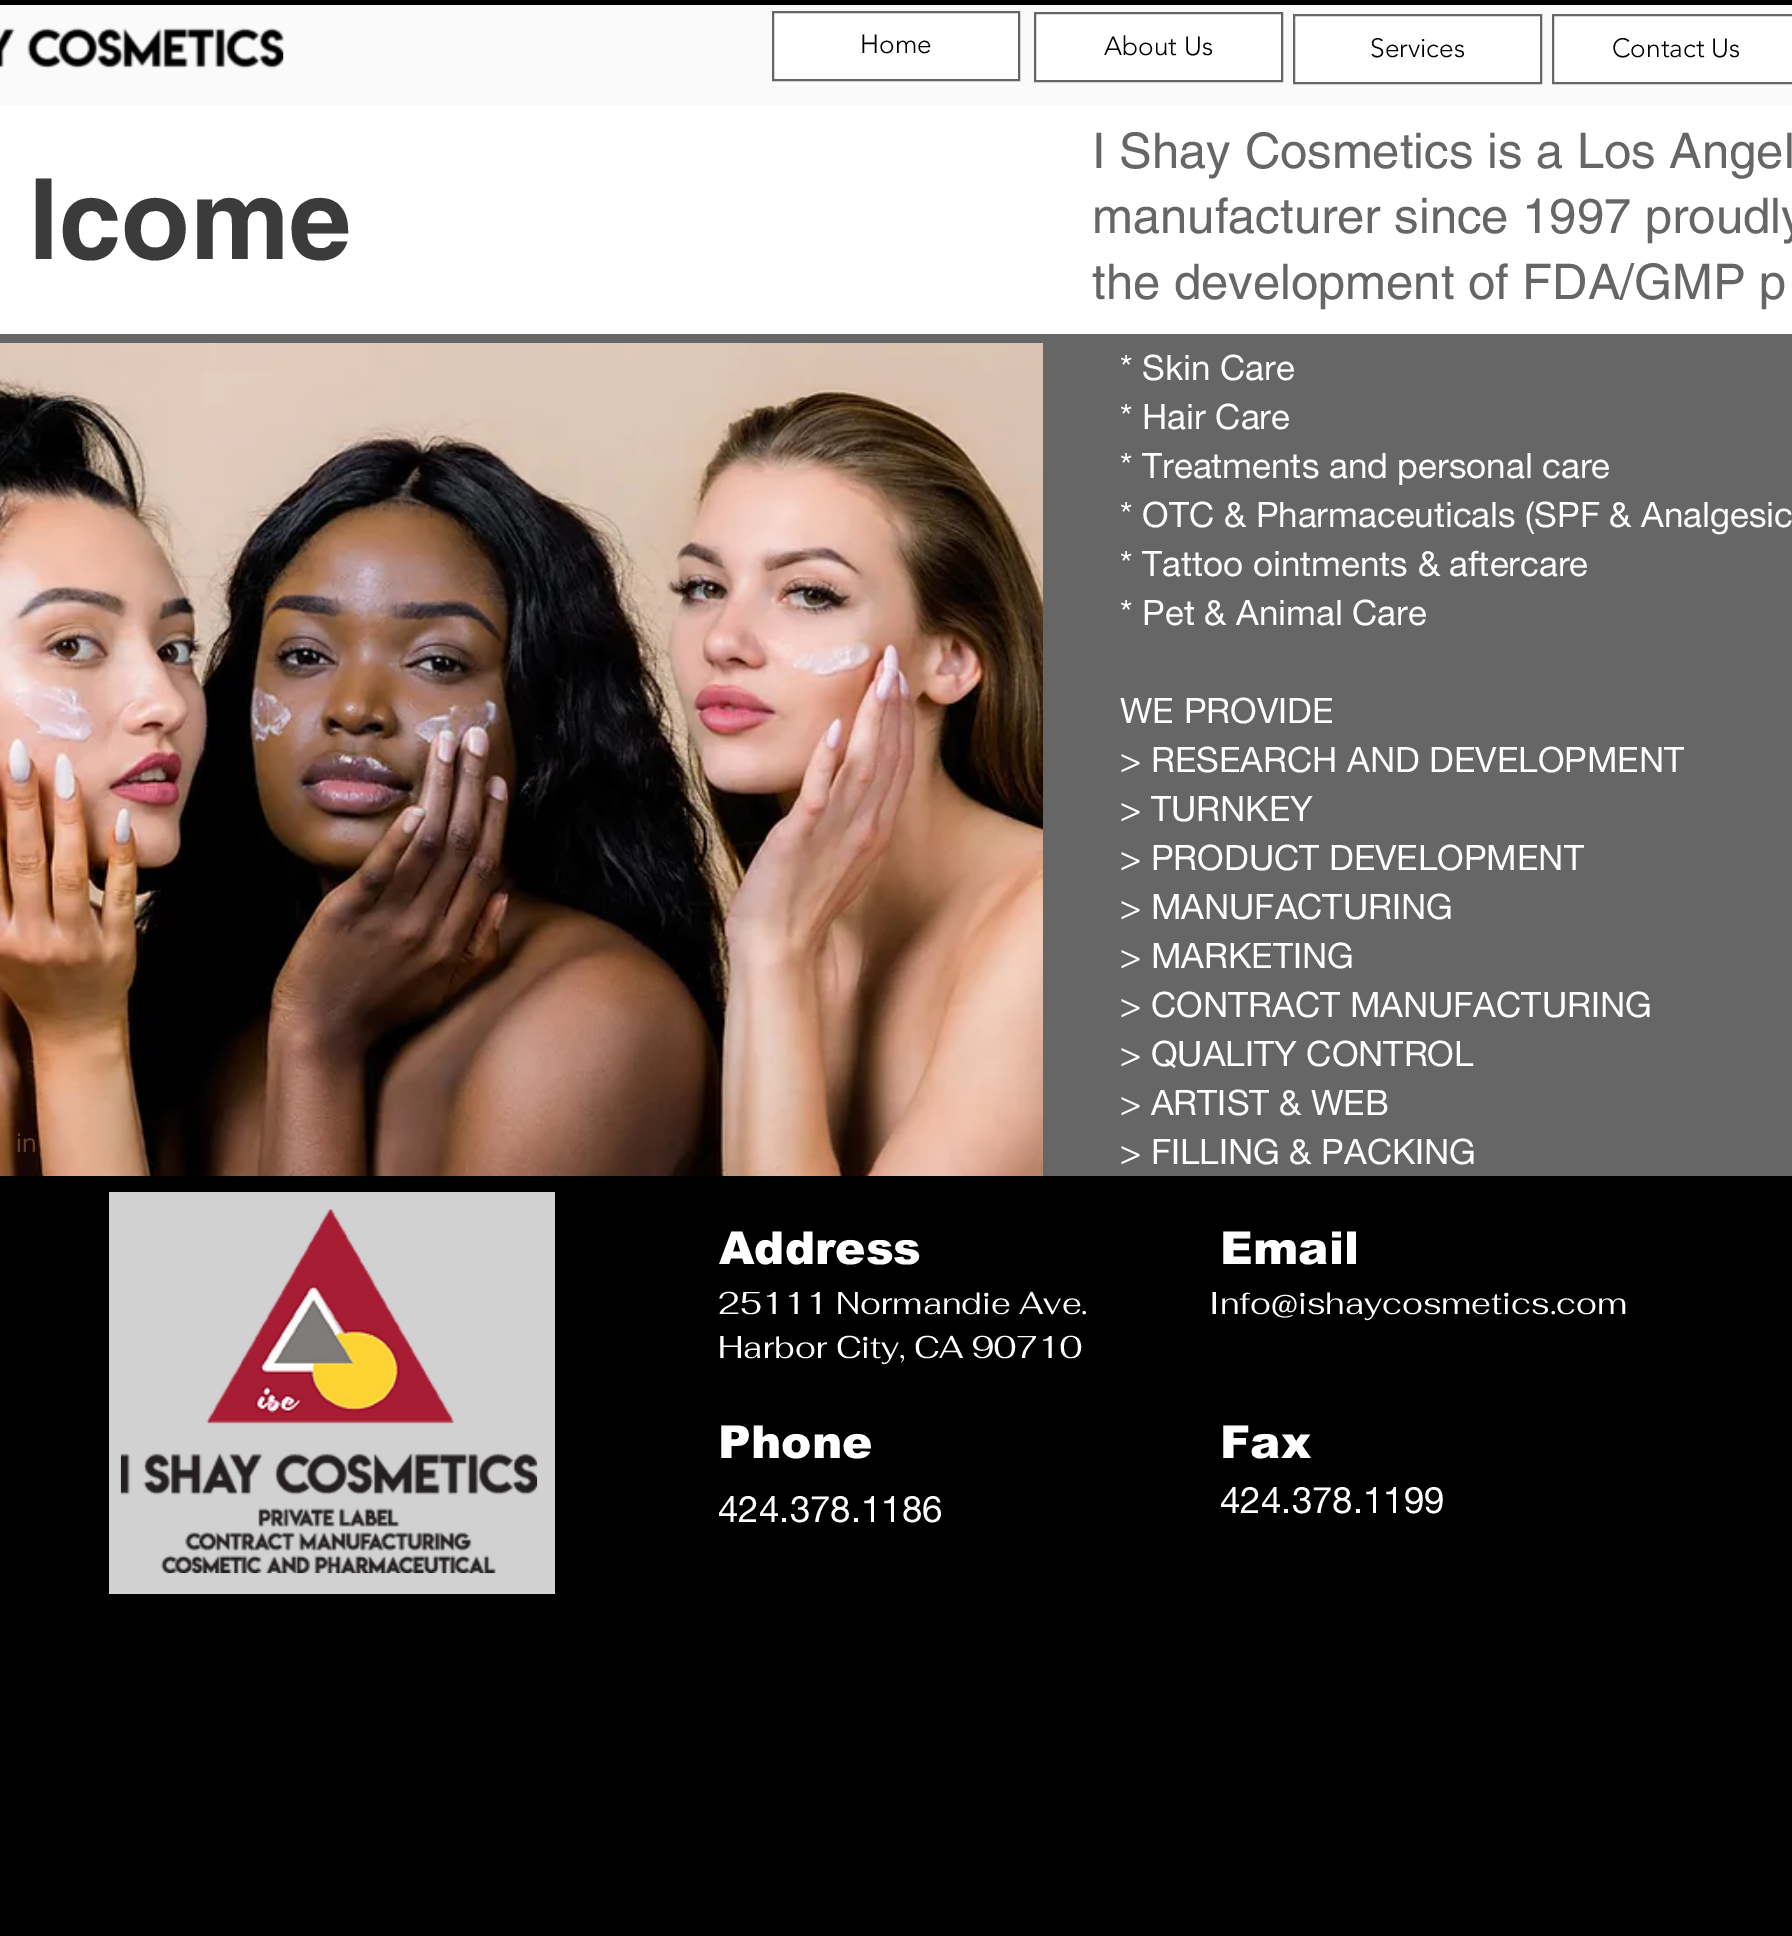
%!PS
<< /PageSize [1792 1936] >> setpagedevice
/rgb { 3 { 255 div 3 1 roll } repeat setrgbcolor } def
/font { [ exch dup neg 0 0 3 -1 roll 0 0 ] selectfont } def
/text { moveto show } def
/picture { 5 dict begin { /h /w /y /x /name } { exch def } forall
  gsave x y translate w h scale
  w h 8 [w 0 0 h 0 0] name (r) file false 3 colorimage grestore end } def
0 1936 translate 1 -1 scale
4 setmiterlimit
0 0 0 rgb
0 0 1792 1936 rectfill
250 250 250 rgb
0 5 1792 100 rectfill
(img_01.rgb) 0 27 284 42 picture
255 255 255 rgb
773 12 moveto 246 0 rlineto 0 68 rlineto -246 0 rlineto closepath gsave fill grestore
102 102 102 rgb
2 setlinewidth
stroke
255 255 255 rgb
1035 13 moveto 247 0 rlineto 0 68 rlineto -247 0 rlineto closepath gsave fill grestore
102 102 102 rgb
stroke
255 255 255 rgb
1294 15 moveto 247 0 rlineto 0 68 rlineto -247 0 rlineto closepath gsave fill grestore
102 102 102 rgb
stroke
255 255 255 rgb
1553 15 moveto 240 0 rlineto 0 68 rlineto -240 0 rlineto closepath gsave fill grestore
102 102 102 rgb
stroke
255 255 255 rgb
0 105 1792 229 rectfill
102 102 102 rgb
0 334 1792 842 rectfill
(img_02.rgb) 0 343 1043 833 picture
209 209 209 rgb
109 1192 446 402 rectfill
(img_03.rgb) 120 1209 418 365 picture
/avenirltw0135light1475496-Light 26.25 font
0 0 0 rgb
(Home) 860 53 text
(About Us) 1104 55 text
(Services) 1370 57 text
(Contact Us) 1612 57 text
/helvetica-Bold 112 font
59 59 59 rgb
(lcome) 28 259 text
/helvetica-Regular 49 font
102 102 102 rgb
(I Shay Cosmetics is a Los Angel) 1092 168 text
(manufacturer since 1997 proudly) 1092 233 text
(the development of FDA/GMP p) 1092 299 text
/helveticaneue-Regular 26.25 font
101 61 39 rgb
(in) 16 1152 text
/helveticaneue-Regular 35 font
255 255 255 rgb
(* Skin Care) 1120 380 text
(* Hair Care) 1120 429 text
(* Treatments and personal care) 1120 478 text
(* OTC & Pharmaceuticals \(SPF & Analgesic) 1120 527 text
(* Tattoo ointments & aftercare) 1120 576 text
(* Pet & Animal Care) 1120 625 text
(WE PROVIDE) 1120 723 text
(> RESEARCH AND DEVELOPMENT) 1120 772 text
(> TURNKEY) 1120 821 text
(> PRODUCT DEVELOPMENT) 1120 870 text
(> MANUFACTURING) 1120 919 text
(> MARKETING) 1120 968 text
(> CONTRACT MANUFACTURING) 1120 1017 text
(> QUALITY CONTROL) 1120 1066 text
(> ARTIST & WEB) 1120 1115 text
(> FILLING & PACKING) 1120 1164 text
/arial-Black 45.5 font
(Address) 719 1264 text
(Email) 1220 1264 text
/Fahkwang-Regular 31.5 font
(25111 Normandie Ave.) 718 1314 text
(Harbor City, CA 90710) 718 1358 text
(Info@ishaycosmetics.com) 1209 1314 text
/arial-Black 45.5 font
(Phone) 718 1458 text
(Fax) 1220 1458 text
/helveticaneue-Regular 36.75 font
(424.378.1186) 718 1522 text
(424.378.1199) 1220 1513 text
showpage
